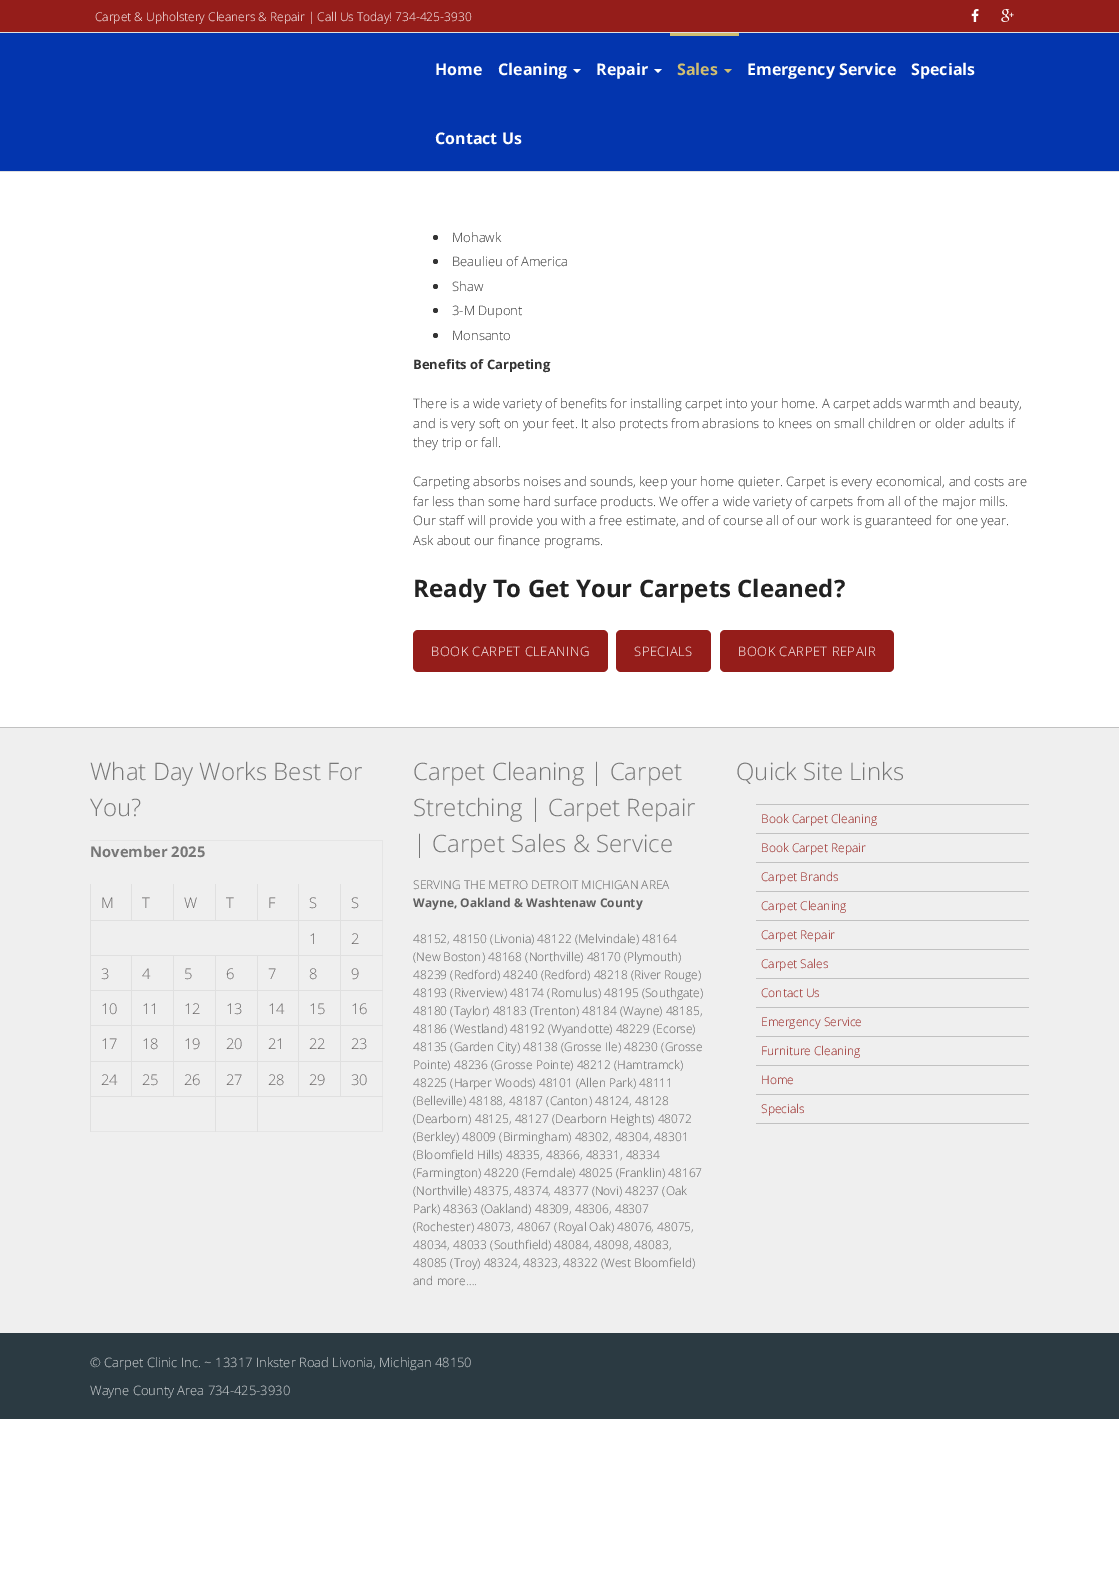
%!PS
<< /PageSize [1119 1590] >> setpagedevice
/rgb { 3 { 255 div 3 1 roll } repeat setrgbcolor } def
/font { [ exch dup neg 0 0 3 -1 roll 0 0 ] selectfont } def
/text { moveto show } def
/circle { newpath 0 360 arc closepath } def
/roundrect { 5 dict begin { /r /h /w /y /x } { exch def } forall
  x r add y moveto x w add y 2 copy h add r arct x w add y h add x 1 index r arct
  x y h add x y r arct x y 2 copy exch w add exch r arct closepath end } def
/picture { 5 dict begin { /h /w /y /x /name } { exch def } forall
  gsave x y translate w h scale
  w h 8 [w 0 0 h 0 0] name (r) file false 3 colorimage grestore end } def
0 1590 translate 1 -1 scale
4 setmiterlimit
255 255 255 rgb
0 0 1119 1590 rectfill
149 29 26 rgb
0 0 1119 32 rectfill
224 224 224 rgb
0 32 1119 1 rectfill
(img_01.rgb) 971 9 8 13 picture
(img_02.rgb) 1001 9 13 13 picture
3 53 174 rgb
0 33 1119 138 rectfill
224 224 224 rgb
0 171 1119 1 rectfill
255 255 255 rgb
573 69 moveto 8 0 rlineto -4 4 rlineto closepath fill
654 69 moveto 8 0 rlineto -4 4 rlineto closepath fill
207 189 113 rgb
670 33 69 3 rectfill
724 69 moveto 8 0 rlineto -4 4 rlineto closepath fill
51 51 51 rgb
435.5 237.5 2.5 circle fill
435.5 261.5 2.5 circle fill
435.5 286.5 2.5 circle fill
435.5 310.5 2.5 circle fill
435.5 335.5 2.5 circle fill
149 29 26 rgb
413 630 195 42 5 roundrect fill
616 630 95 42 5 roundrect fill
720 630 174 42 5 roundrect fill
239 239 239 rgb
0 728 1119 605 rectfill
193 193 193 rgb
0 727 1119 1 rectfill
229 229 229 rgb
90 840 293 1 rectfill
382 840 1 292 rectfill
90 1131 293 1 rectfill
224 224 224 rgb
340 920 43 1 rectfill
340 955 43 1 rectfill
340 990 43 1 rectfill
340 1025 43 1 rectfill
340 1061 43 1 rectfill
340 1061 1 36 rectfill
298 1061 43 1 rectfill
340 1025 1 37 rectfill
298 1025 43 1 rectfill
340 990 1 36 rectfill
298 990 43 1 rectfill
340 955 1 36 rectfill
298 955 43 1 rectfill
340 920 1 36 rectfill
298 920 43 1 rectfill
298 1061 1 36 rectfill
257 1061 42 1 rectfill
298 1025 1 37 rectfill
257 1025 42 1 rectfill
298 990 1 36 rectfill
257 990 42 1 rectfill
298 955 1 36 rectfill
257 955 42 1 rectfill
298 920 1 36 rectfill
90 920 209 1 rectfill
131 884 1 37 rectfill
173 884 1 37 rectfill
215 884 1 37 rectfill
257 884 1 37 rectfill
298 884 1 37 rectfill
340 884 1 37 rectfill
257 1061 1 36 rectfill
215 1061 43 1 rectfill
257 1025 1 37 rectfill
215 1025 43 1 rectfill
257 990 1 36 rectfill
215 990 43 1 rectfill
257 955 1 36 rectfill
215 955 43 1 rectfill
215 1061 1 36 rectfill
173 1061 43 1 rectfill
215 1025 1 37 rectfill
173 1025 43 1 rectfill
215 990 1 36 rectfill
173 990 43 1 rectfill
215 955 1 36 rectfill
173 955 43 1 rectfill
173 1061 1 36 rectfill
131 1061 43 1 rectfill
173 1025 1 37 rectfill
131 1025 43 1 rectfill
173 990 1 36 rectfill
131 990 43 1 rectfill
173 955 1 36 rectfill
131 955 43 1 rectfill
131 1061 1 36 rectfill
90 1061 42 1 rectfill
131 1025 1 37 rectfill
90 1025 42 1 rectfill
131 990 1 36 rectfill
90 990 42 1 rectfill
131 955 1 36 rectfill
90 955 42 1 rectfill
90 1061 1 36 rectfill
90 1025 1 37 rectfill
90 990 1 36 rectfill
90 955 1 36 rectfill
90 884 1 72 rectfill
257 1096 126 1 rectfill
257 1096 1 36 rectfill
215 1096 43 1 rectfill
215 1096 1 36 rectfill
90 1096 126 1 rectfill
90 1096 1 36 rectfill
193 193 193 rgb
756 804 273 1 rectfill
756 833 273 1 rectfill
756 862 273 1 rectfill
756 891 273 1 rectfill
756 920 273 1 rectfill
756 949 273 1 rectfill
756 978 273 1 rectfill
756 1007 273 1 rectfill
756 1036 273 1 rectfill
756 1065 273 1 rectfill
756 1094 273 1 rectfill
756 1123 273 1 rectfill
43 58 66 rgb
0 1333 1119 86 rectfill
/OpenSans-Light 12 font
255 255 255 rgb
(Carpet & Upholstery Cleaners & Repair | Call Us Today! 734-425-3930) 95 21 text
/OpenSans-Bold 16 font
(Home) 435 75 text
(Cleaning) 498 75 text
(Repair) 596 75 text
207 189 113 rgb
(Sales) 677 75 text
255 255 255 rgb
(Emergency Service) 747 75 text
(Specials) 911 75 text
(Contact Us) 435 144 text
/OpenSans-Light 13 font
51 51 51 rgb
(Mohawk) 452 242 text
(Beaulieu of America) 452 266 text
(Shaw) 452 291 text
(3-M Dupont) 452 315 text
(Monsanto) 452 340 text
/OpenSans-Bold 13 font
(Benefits of Carpeting) 413 369 text
/OpenSans-Light 13 font
(There is a wide variety of benefits for installing carpet into your home. A carpet adds warmth and beauty,) 413 408 text
(and is very soft on your feet. It also protects from abrasions to knees on small children or older adults if) 413 428 text
(they trip or fall.) 413 447 text
(Carpeting absorbs noises and sounds, keep your home quieter. Carpet is every economical, and costs are) 413 486 text
(far less than some hard surface products. We offer a wide variety of carpets from all of the major mills.) 413 506 text
(Our staff will provide you with a free estimate, and of course all of our work is guaranteed for one year.) 413 525 text
(Ask about our finance programs.) 413 545 text
/OpenSans-Bold 24 font
34 34 34 rgb
(Ready To Get Your Carpets Cleaned?) 413 597 text
/OpenSans-Light 13 font
255 255 255 rgb
431 656 moveto 0.5 0 (BOOK CARPET CLEANING) ashow
634 656 moveto 0.5 0 (SPECIALS) ashow
738 656 moveto 0.5 0 (BOOK CARPET REPAIR) ashow
/OpenSans-Light 24 font
119 119 119 rgb
(What Day Works Best For) 90 780 text
(You?) 90 816 text
/OpenSans-Bold 14.75 font
(November 2025) 90 857 text
/OpenSans-Light 14.75 font
106 103 103 rgb
(M) 101 908 text
(T) 142 908 text
(W) 184 908 text
(T) 226 908 text
(F) 268 908 text
(S) 309 908 text
(S) 351 908 text
(1) 309 944 text
(2) 351 944 text
(3) 101 979 text
(4) 142 979 text
(5) 184 979 text
(6) 226 979 text
(7) 268 979 text
(8) 309 979 text
(9) 351 979 text
(10) 101 1014 text
(11) 142 1014 text
(12) 184 1014 text
(13) 226 1014 text
(14) 268 1014 text
(15) 309 1014 text
(16) 351 1014 text
(17) 101 1049 text
(18) 142 1049 text
(19) 184 1049 text
(20) 226 1049 text
(21) 268 1049 text
(22) 309 1049 text
(23) 351 1049 text
(24) 101 1085 text
(25) 142 1085 text
(26) 184 1085 text
(27) 226 1085 text
(28) 268 1085 text
(29) 309 1085 text
(30) 351 1085 text
/OpenSans-Light 24 font
119 119 119 rgb
(Carpet Cleaning | Carpet) 413 780 text
(Stretching | Carpet Repair) 413 816 text
(| Carpet Sales & Service) 413 852 text
/OpenSans-Light 12 font
95 95 95 rgb
(SERVING THE METRO DETROIT MICHIGAN AREA) 413 889 text
/OpenSans-Bold 12 font
(Wayne, Oakland & Washtenaw County) 413 907 text
/OpenSans-Light 12 font
(48152, 48150 \(Livonia\) 48122 \(Melvindale\) 48164) 413 943 text
(\(New Boston\) 48168 \(Northville\) 48170 \(Plymouth\)) 413 961 text
(48239 \(Redford\) 48240 \(Redford\) 48218 \(River Rouge\)) 413 979 text
(48193 \(Riverview\) 48174 \(Romulus\) 48195 \(Southgate\)) 413 997 text
(48180 \(Taylor\) 48183 \(Trenton\) 48184 \(Wayne\) 48185,) 413 1015 text
(48186 \(Westland\) 48192 \(Wyandotte\) 48229 \(Ecorse\)) 413 1033 text
(48135 \(Garden City\) 48138 \(Grosse Ile\) 48230 \(Grosse) 413 1051 text
(Pointe\) 48236 \(Grosse Pointe\) 48212 \(Hamtramck\)) 413 1069 text
(48225 \(Harper Woods\) 48101 \(Allen Park\) 48111) 413 1087 text
(\(Belleville\) 48188, 48187 \(Canton\) 48124, 48128) 413 1105 text
(\(Dearborn\) 48125, 48127 \(Dearborn Heights\) 48072) 413 1123 text
(\(Berkley\) 48009 \(Birmingham\) 48302, 48304, 48301) 413 1141 text
(\(Bloomfield Hills\) 48335, 48366, 48331, 48334) 413 1159 text
(\(Farmington\) 48220 \(Ferndale\) 48025 \(Franklin\) 48167) 413 1177 text
(\(Northville\) 48375, 48374, 48377 \(Novi\) 48237 \(Oak) 413 1195 text
(Park\) 48363 \(Oakland\) 48309, 48306, 48307) 413 1213 text
(\(Rochester\) 48073, 48067 \(Royal Oak\) 48076, 48075,) 413 1231 text
(48034, 48033 \(Southfield\) 48084, 48098, 48083,) 413 1249 text
(48085 \(Troy\) 48324, 48323, 48322 \(West Bloomfield\)) 413 1267 text
(and more….) 413 1285 text
/OpenSans-Light 24 font
119 119 119 rgb
(Quick Site Links) 736 780 text
/OpenSans-Light 12 font
149 29 26 rgb
(Book Carpet Cleaning) 761 823 text
(Book Carpet Repair) 761 852 text
(Carpet Brands) 761 881 text
(Carpet Cleaning) 761 910 text
(Carpet Repair) 761 939 text
(Carpet Sales) 761 968 text
(Contact Us) 761 997 text
(Emergency Service) 761 1026 text
(Furniture Cleaning) 761 1055 text
(Home) 761 1084 text
(Specials) 761 1113 text
/OpenSans-Light 13 font
212 215 217 rgb
(© Carpet Clinic Inc. ~ 13317 Inkster Road Livonia, Michigan 48150) 90 1367 text
(Wayne County Area 734-425-3930) 90 1395 text
showpage
